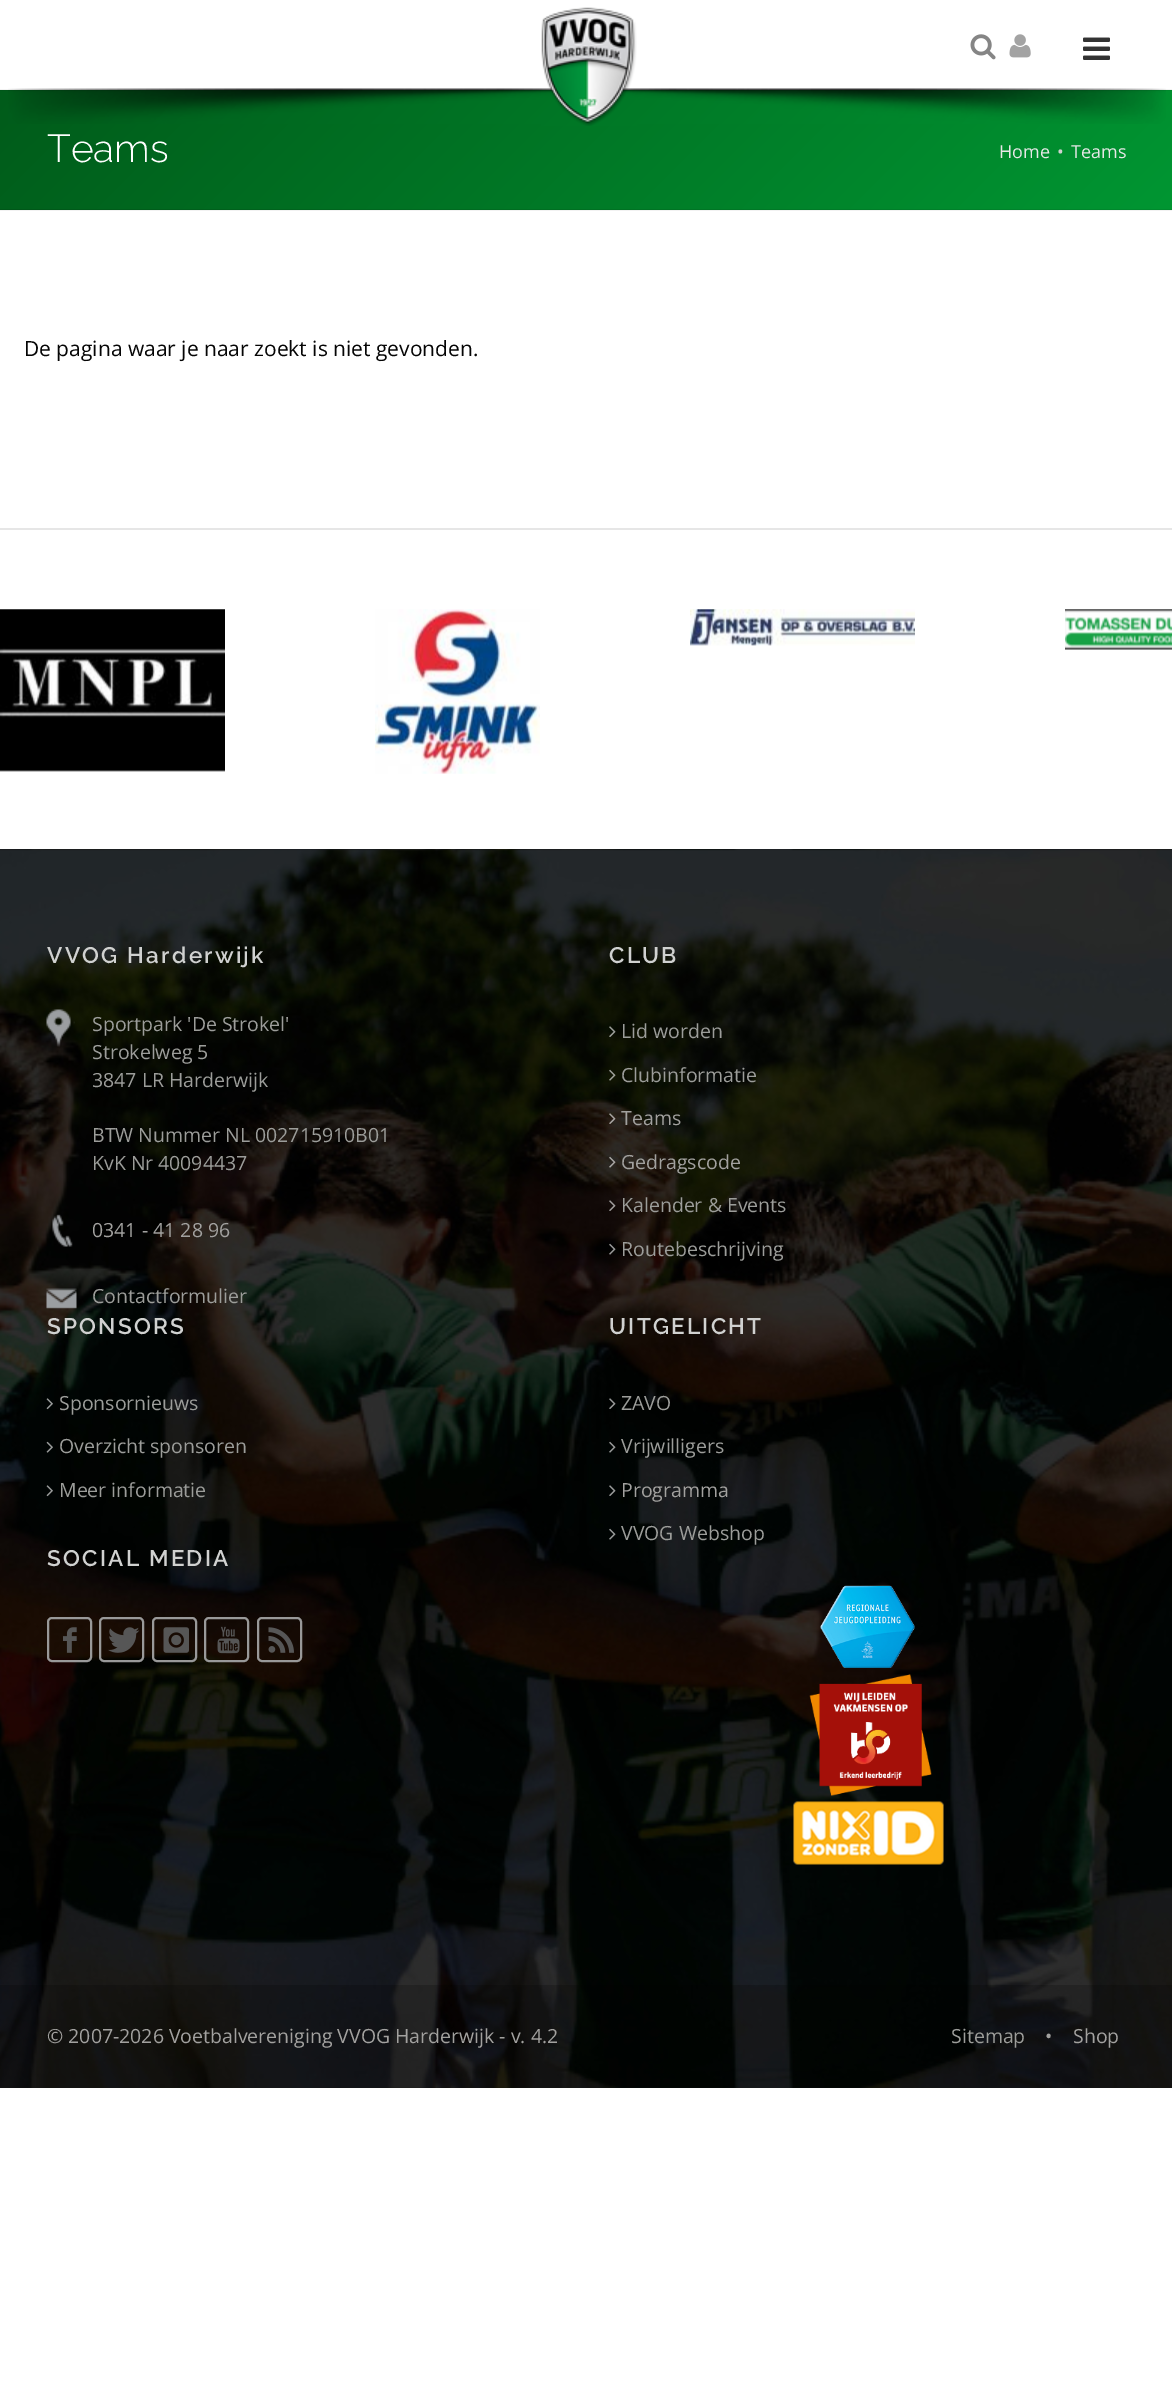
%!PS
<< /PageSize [1172 2407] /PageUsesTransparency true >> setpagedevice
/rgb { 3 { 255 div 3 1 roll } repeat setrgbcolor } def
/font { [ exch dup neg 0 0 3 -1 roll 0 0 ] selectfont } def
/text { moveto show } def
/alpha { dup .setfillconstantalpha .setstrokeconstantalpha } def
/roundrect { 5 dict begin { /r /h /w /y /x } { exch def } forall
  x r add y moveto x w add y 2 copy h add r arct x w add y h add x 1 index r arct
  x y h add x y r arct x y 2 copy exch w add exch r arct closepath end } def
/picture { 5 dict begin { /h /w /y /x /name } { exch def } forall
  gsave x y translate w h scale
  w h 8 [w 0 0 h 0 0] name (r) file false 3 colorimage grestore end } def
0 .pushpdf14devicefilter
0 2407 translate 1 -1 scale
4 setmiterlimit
255 255 255 rgb
0 0 1172 2407 rectfill
242 242 242 rgb
0 210 1172 1 rectfill
gsave 0 90 moveto 1172 0 rlineto 0 119 rlineto -1172 0 rlineto closepath clip newpath
<< /ShadingType 2 /ColorSpace /DeviceRGB /Coords [264 -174 909 472] /Extend [true true] /Function << /FunctionType 2 /Domain [0 1] /C0 [0 0.357 0.102] /C1 [0 0.588 0.196] /N 1 >> >> shfill grestore
0.05 alpha
0 0 0 rgb
0 89 1172 2 rectfill
1 alpha
(img_05.rgb) 8 88 1158 36 picture
(img_01.rgb) 541 7 96 119 picture
(img_02.rgb) 970 34 26 26 picture
(img_03.rgb) 1009 34 22 24 picture
(img_04.rgb) 1083 37 27 23 picture
gsave 0 209 moveto 1172 0 rlineto 0 1 rlineto -1172 0 rlineto closepath clip newpath
<< /ShadingType 2 /ColorSpace /DeviceRGB /Coords [264 -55 909 591] /Extend [true true] /Function << /FunctionType 2 /Domain [0 1] /C0 [0 0.337 0.098] /C1 [0 0.561 0.188] /N 1 >> >> shfill grestore
230 230 230 rgb
0 528 1172 2 rectfill
(img_06.rgb) 0 609 225 163 picture
(img_07.rgb) 375 609 165 165 picture
(img_08.rgb) 690 609 225 37 picture
(img_09.rgb) 1065 609 107 41 picture
(img_10.rgb) 0 849 1172 1239 picture
(img_11.rgb) 46 1009 29 38 picture
(img_12.rgb) 52 1214 21 33 picture
(img_13.rgb) 46 1288 31 21 picture
(img_14.rgb) 609 1026 7 11 picture
(img_15.rgb) 609 1069 7 12 picture
(img_16.rgb) 609 1113 7 11 picture
(img_17.rgb) 609 1156 7 12 picture
(img_18.rgb) 609 1200 7 11 picture
(img_19.rgb) 609 1243 7 12 picture
(img_20.rgb) 46 1398 7 12 picture
(img_21.rgb) 46 1441 7 12 picture
(img_22.rgb) 46 1485 7 12 picture
153 153 153 rgb
2 setlinewidth
48 1618 43 43 4 roundrect stroke
(img_23.rgb) 63 1627 14 26 picture
100 1618 43 43 4 roundrect stroke
(img_24.rgb) 108 1627 32 26 picture
153 1618 43 43 4 roundrect stroke
(img_25.rgb) 163 1627 26 26 picture
205 1618 43 43 4 roundrect stroke
(img_26.rgb) 217 1626 23 28 picture
258 1618 43 43 4 roundrect stroke
(img_27.rgb) 268 1627 26 26 picture
(img_28.rgb) 609 1398 7 11 picture
(img_29.rgb) 609 1441 7 12 picture
(img_30.rgb) 609 1485 7 11 picture
(img_31.rgb) 609 1528 7 12 picture
(img_32.rgb) 820 1585 95 83 picture
(img_33.rgb) 809 1674 123 122 picture
(img_34.rgb) 793 1801 151 64 picture
0.2 alpha
0 0 0 rgb
0 1985 1172 103 rectfill
/Raleway-Light 39 font
1 alpha
255 255 255 rgb
(Teams) 47 162 text
/OpenSans-Regular 18 font
232 232 232 rgb
(Home) 999 158 text
208 209 208 rgb
(•) 1057 158 text
232 232 232 rgb
(Teams) 1071 158 text
/OpenSans-Regular 21 font
5 5 5 rgb
(De pagina waar je naar zoekt is niet gevonden.) 24 356 text
/Raleway-SemiBold 22.5 font
208 209 208 rgb
47 963 moveto 2.25 0 (VVOG Harderwijk) ashow
/OpenSans-Regular 19.5 font
156 157 154 rgb
(Sportpark 'De Strokel') 92 1031 text
(Strokelweg 5) 92 1059 text
(3847 LR Harderwijk) 92 1087 text
(BTW Nummer NL 002715910B01) 92 1142 text
(KvK Nr) 92 1170 text
(40094437) 158 1170 text
162 161 159 rgb
(0341 - 41 28 96) 92 1237 text
156 157 154 rgb
(Contactformulier) 92 1303 text
/Raleway-SemiBold 22.5 font
208 209 208 rgb
609 963 moveto 2.25 0 (CLUB) ashow
/OpenSans-Regular 19.5 font
156 157 154 rgb
(Lid worden) 621 1038 text
(Clubinformatie) 621 1082 text
162 161 159 rgb
(Teams) 621 1125 text
(Gedragscode) 621 1169 text
156 157 154 rgb
(Kalender & Events) 621 1212 text
(Routebeschrijving) 621 1256 text
/Raleway-SemiBold 22.5 font
208 209 208 rgb
47 1334 moveto 2.25 0 (SPONSORS) ashow
/OpenSans-Regular 19.5 font
156 157 154 rgb
(Sponsornieuws) 59 1410 text
(Overzicht sponsoren) 59 1453 text
(Meer informatie) 59 1497 text
/Raleway-SemiBold 22.5 font
208 209 208 rgb
47 1566 moveto 2.25 0 (SOCIAL MEDIA) ashow
609 1334 moveto 2.25 0 (UITGELICHT) ashow
/OpenSans-Regular 19.5 font
156 157 154 rgb
(ZAVO) 621 1410 text
(Vrijwilligers) 621 1453 text
162 161 159 rgb
(Programma) 621 1497 text
156 157 154 rgb
(VVOG Webshop) 621 1540 text
162 161 159 rgb
(© 2007-2026 Voetbalvereniging VVOG Harderwijk - v. 4.2) 47 2043 text
156 157 154 rgb
(Sitemap) 951 2043 text
162 161 159 rgb
(•) 1045 2043 text
(Shop) 1073 2043 text
.poppdf14devicefilter showpage
